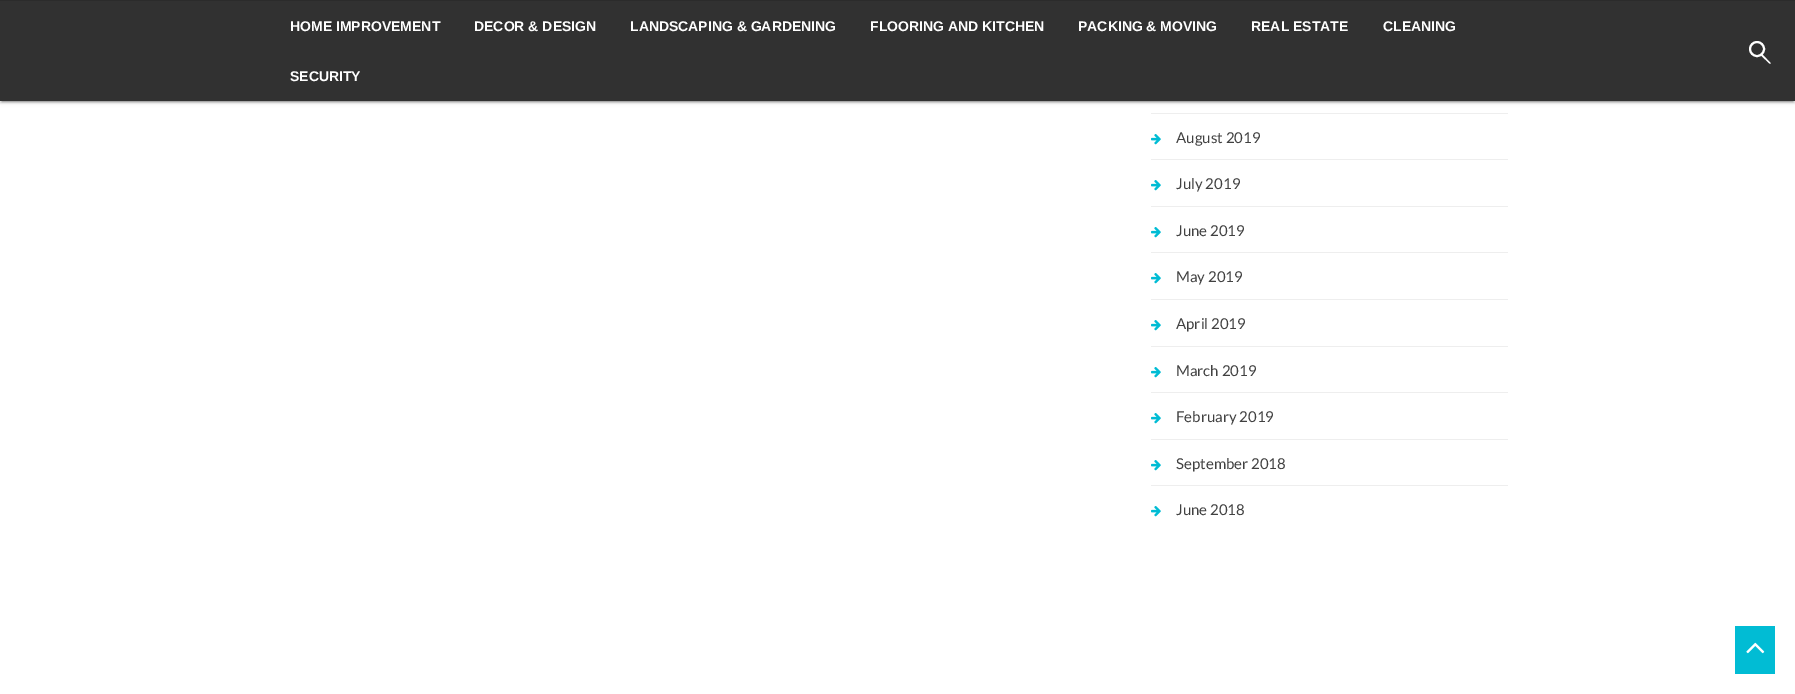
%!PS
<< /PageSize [1795 694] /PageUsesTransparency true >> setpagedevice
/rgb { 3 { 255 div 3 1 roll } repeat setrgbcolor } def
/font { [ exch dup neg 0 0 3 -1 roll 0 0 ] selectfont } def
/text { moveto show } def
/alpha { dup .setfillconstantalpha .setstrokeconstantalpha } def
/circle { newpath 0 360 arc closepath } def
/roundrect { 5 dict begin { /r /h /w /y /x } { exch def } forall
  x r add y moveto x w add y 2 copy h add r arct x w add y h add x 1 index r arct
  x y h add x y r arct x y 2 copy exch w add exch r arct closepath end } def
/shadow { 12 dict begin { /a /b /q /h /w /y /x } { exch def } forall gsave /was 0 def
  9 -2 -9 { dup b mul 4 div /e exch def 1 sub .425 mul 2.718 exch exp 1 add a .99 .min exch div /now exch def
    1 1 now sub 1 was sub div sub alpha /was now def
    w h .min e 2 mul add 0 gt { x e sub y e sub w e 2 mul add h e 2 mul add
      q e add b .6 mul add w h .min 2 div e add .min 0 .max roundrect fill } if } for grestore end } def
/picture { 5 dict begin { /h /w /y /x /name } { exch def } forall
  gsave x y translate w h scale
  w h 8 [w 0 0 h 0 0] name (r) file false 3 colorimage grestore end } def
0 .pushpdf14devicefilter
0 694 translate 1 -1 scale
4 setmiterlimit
255 255 255 rgb
0 0 1795 694 rectfill
0 0 0 rgb
0 1 1795 101 0 2.5 0.12 shadow
2 5 1791 97 0 0.5 0.2 shadow
0 2 1795 101 0 1 0.14 shadow
49 49 49 rgb
0 1 1795 100 rectfill
43 43 43 rgb
0 0 1795 1 rectfill
255 255 255 rgb
2 setlinewidth
1757 49 7 circle stroke
1762.5 54.5 moveto 8 8.5 rlineto 0.5 0.5 -0.5 1 -1 0.5 rcurveto -8.5 -8 rlineto -0.5 -0.5 0.5 -2 1.5 -1 rcurveto closepath fill
238 238 238 rgb
1151 113 357 1 rectfill
1151 159 357 1 rectfill
(img_01.rgb) 1151 134 10 11 picture
1151 206 357 1 rectfill
(img_01.rgb) 1151 180 10 11 picture
1151 252 357 1 rectfill
(img_01.rgb) 1151 227 10 11 picture
1151 299 357 1 rectfill
(img_01.rgb) 1151 273 10 11 picture
1151 346 357 1 rectfill
(img_01.rgb) 1151 320 10 11 picture
1151 392 357 1 rectfill
(img_01.rgb) 1151 367 10 11 picture
1151 439 357 1 rectfill
(img_01.rgb) 1151 413 10 11 picture
1151 485 357 1 rectfill
(img_01.rgb) 1151 460 10 11 picture
(img_01.rgb) 1151 506 10 11 picture
1 188 212 rgb
1735 626 40 48 rectfill
(img_02.rgb) 1746 642 19 12 picture
/LiberationSans-Bold 14 font
255 255 255 rgb
(HOME IMPROVEMENT) 290 31 text
(DECOR & DESIGN) 474 31 text
(LANDSCAPING & GARDENING) 630 31 text
(FLOORING AND KITCHEN) 870 31 text
(PACKING & MOVING) 1078 31 text
(REAL ESTATE) 1251 31 text
(CLEANING) 1383 31 text
(SECURITY) 290 81 text
/Lato-Regular 15 font
65 65 65 rgb
(August 2019) 1176 143 text
(July 2019) 1176 189 text
(June 2019) 1176 236 text
(May 2019) 1176 282 text
(April 2019) 1176 329 text
(March 2019) 1176 376 text
(February 2019) 1176 422 text
(September 2018) 1176 469 text
(June 2018) 1176 515 text
.poppdf14devicefilter showpage
